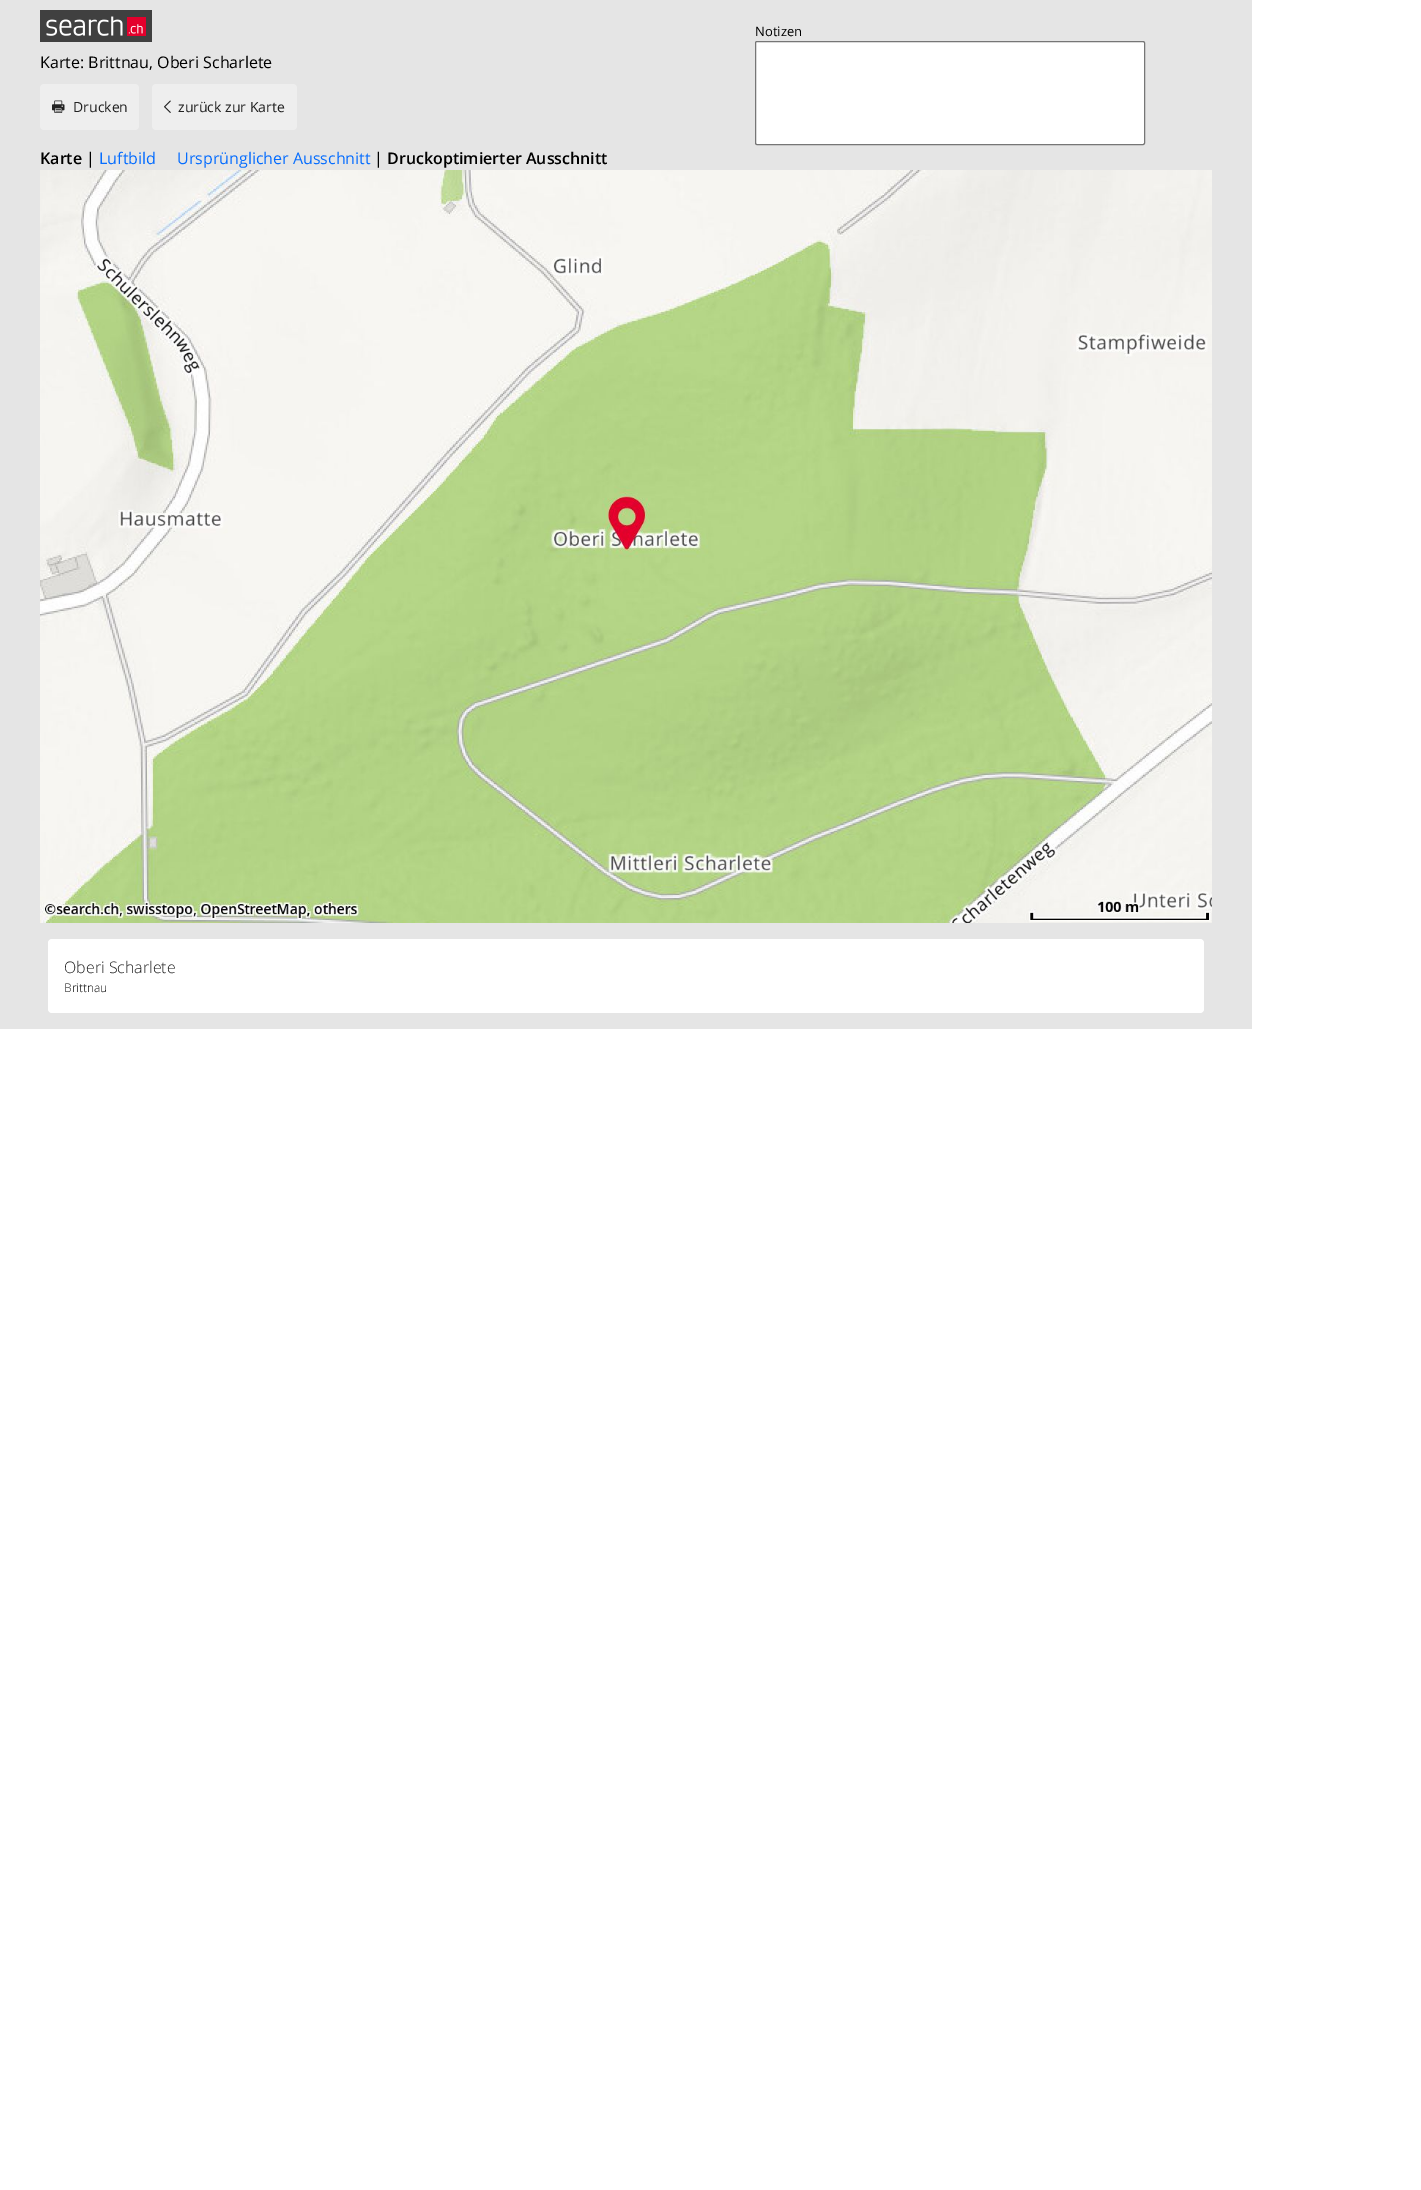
%!PS
<< /PageSize [1421 2190] >> setpagedevice
/rgb { 3 { 255 div 3 1 roll } repeat setrgbcolor } def
/font { [ exch dup neg 0 0 3 -1 roll 0 0 ] selectfont } def
/text { moveto show } def
/roundrect { 5 dict begin { /r /h /w /y /x } { exch def } forall
  x r add y moveto x w add y 2 copy h add r arct x w add y h add x 1 index r arct
  x y h add x y r arct x y 2 copy exch w add exch r arct closepath end } def
/picture { 5 dict begin { /h /w /y /x /name } { exch def } forall
  gsave x y translate w h scale
  w h 8 [w 0 0 h 0 0] name (r) file false 3 colorimage grestore end } def
0 2190 translate 1 -1 scale
4 setmiterlimit
255 255 255 rgb
0 0 1421 2190 rectfill
229 229 229 rgb
0 0 1252 1029 rectfill
255 255 255 rgb
755.5 41.5 389 103 1.5 roundrect gsave fill grestore
118 118 118 rgb
stroke
(img_01.rgb) 40 10 112 32 picture
238 238 238 rgb
40 84 99 46 4 roundrect fill
(img_02.rgb) 52 100 13 13 picture
152 84 145 46 4 roundrect fill
(img_03.rgb) 164 100 7 13 picture
(img_04.rgb) 40 170 1172 753 picture
255 255 255 rgb
48 939 1156 74 4 roundrect fill
/OpenSans-Regular 13 font
0 0 0 rgb
(Notizen) 755 36 text
/OpenSans-Regular 16 font
(Karte: Brittnau, Oberi Scharlete) 40 68 text
/OpenSans-Regular 14 font
34 34 34 rgb
(Drucken) 73 112 text
(zurück zur Karte) 178 112 text
/OpenSans-SemiBold 16 font
0 0 0 rgb
(Karte) 40 164 text
/OpenSans-Regular 16 font
(|) 86 164 text
5 109 255 rgb
(Luftbild) 99 164 text
(Ursprünglicher Ausschnitt) 177 164 text
0 0 0 rgb
(|) 374 164 text
/OpenSans-SemiBold 16 font
(Druckoptimierter Ausschnitt) 387 164 text
/OpenSans-Light 16 font
34 34 34 rgb
(Oberi Scharlete) 64 973 text
/OpenSans-Light 12 font
17 17 17 rgb
(Brittnau) 64 992 text
showpage
